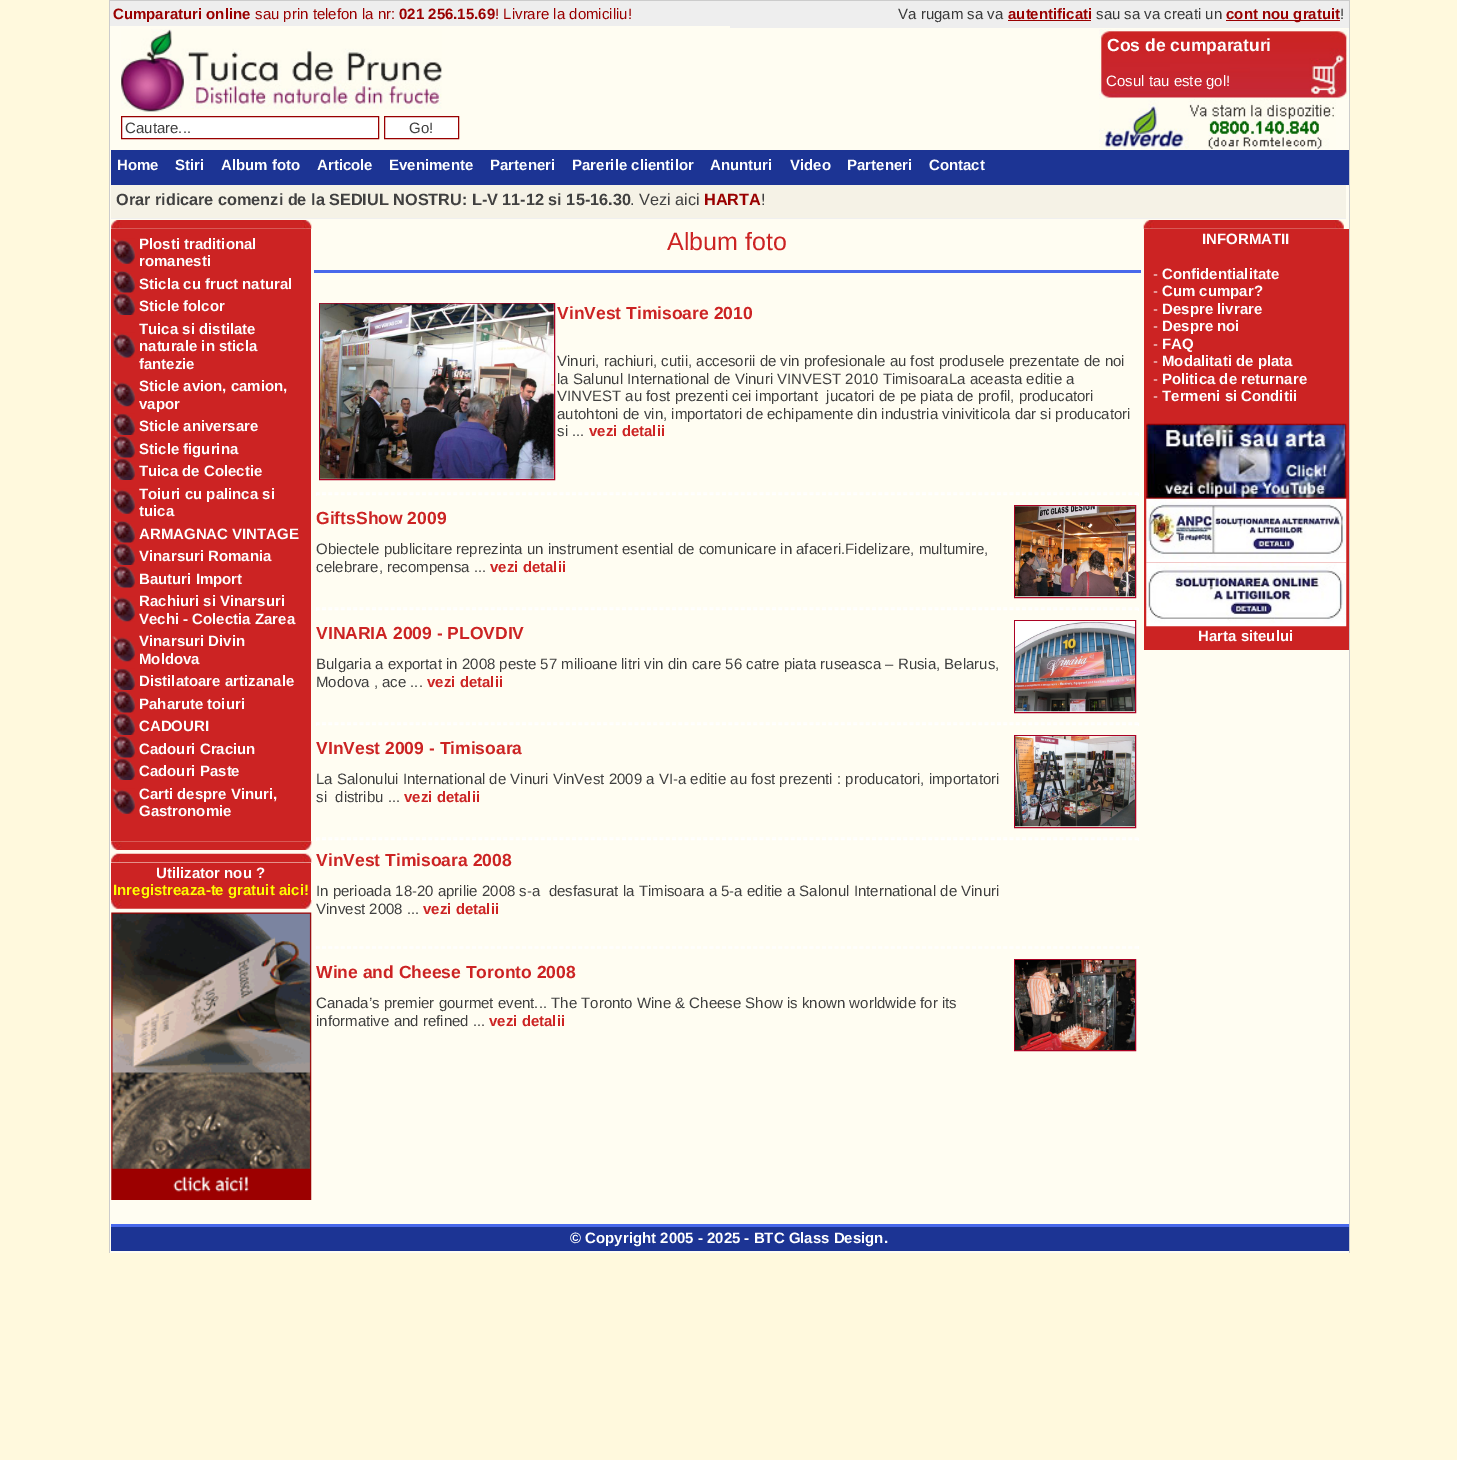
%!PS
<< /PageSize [1457 1460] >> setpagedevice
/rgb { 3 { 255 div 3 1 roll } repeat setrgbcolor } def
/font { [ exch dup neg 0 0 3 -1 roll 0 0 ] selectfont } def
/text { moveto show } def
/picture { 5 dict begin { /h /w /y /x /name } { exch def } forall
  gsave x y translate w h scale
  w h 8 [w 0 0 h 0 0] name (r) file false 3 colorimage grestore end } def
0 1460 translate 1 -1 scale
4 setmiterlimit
255 249 221 rgb
0 0 1457 1460 rectfill
255 253 242 rgb
110 26 1239 1227 rectfill
204 204 204 rgb
109 0 1241 1 rectfill
1349 0 1 1253 rectfill
109 0 1 1253 rectfill
238 238 238 rgb
110 1 620 25 rectfill
730 1 619 27 rectfill
153 0 0 rgb
1008 20 83 1 rectfill
1226 20 114 1 rectfill
(img_01.rgb) 1099 29 249 70 picture
(img_02.rgb) 1099 99 237 50 picture
(img_03.rgb) 121 29 321 83 picture
255 255 255 rgb
121.5 116.5 moveto 257 0 rlineto 0 22 rlineto -257 0 rlineto closepath gsave fill grestore
153 0 0 rgb
stroke
255 255 255 rgb
384.5 116.5 moveto 74 0 rlineto 0 22 rlineto -74 0 rlineto closepath gsave fill grestore
153 0 0 rgb
stroke
28 52 148 rgb
111 150 1238 35 rectfill
245 242 230 rgb
111 185 1235 33 rectfill
239 239 239 rgb
111 218 1235 1 rectfill
(img_04.rgb) 111 220 201 9 picture
204 35 35 rgb
111 229 200 612 rectfill
(img_05.rgb) 112 238 23 26 picture
(img_06.rgb) 112 271 23 22 picture
(img_07.rgb) 112 293 23 22 picture
(img_08.rgb) 112 332 23 26 picture
(img_09.rgb) 112 381 23 26 picture
(img_10.rgb) 112 413 23 22 picture
(img_06.rgb) 112 436 23 22 picture
(img_10.rgb) 112 458 23 22 picture
(img_05.rgb) 112 488 23 26 picture
(img_06.rgb) 112 521 23 22 picture
(img_10.rgb) 112 543 23 22 picture
(img_06.rgb) 112 566 23 22 picture
(img_09.rgb) 112 596 23 26 picture
(img_09.rgb) 112 636 23 26 picture
(img_10.rgb) 112 668 23 22 picture
(img_06.rgb) 112 691 23 22 picture
(img_10.rgb) 112 713 23 22 picture
(img_06.rgb) 112 736 23 22 picture
(img_10.rgb) 112 758 23 22 picture
(img_05.rgb) 112 788 23 26 picture
(img_11.rgb) 111 841 201 9 picture
(img_12.rgb) 111 853 201 10 picture
111 863 200 37 rectfill
(img_13.rgb) 111 900 201 9 picture
(img_14.rgb) 111 912 201 288 picture
73 105 235 rgb
314 270 827 3 rectfill
171 1 36 rgb
319.5 303.5 235 176 rectstroke
(img_15.rgb) 320 303 234 176 picture
255 255 255 rgb
1.2 setlinewidth
[3.75 2.5] 0 setdash
316 493 moveto 823 0 rlineto stroke
1138 493 1 3 rectfill
316 494.5 moveto 823 0 rlineto stroke
316 493 1 3 rectfill
171 1 36 rgb
1 setlinewidth
[] 0 setdash
1014.5 505.5 121 92 rectstroke
(img_16.rgb) 1015 506 120 91 picture
255 255 255 rgb
1.2 setlinewidth
[3.75 2.5] 0 setdash
316 608 moveto 823 0 rlineto stroke
1138 608 1 3 rectfill
316 609.5 moveto 823 0 rlineto stroke
316 608 1 3 rectfill
171 1 36 rgb
1 setlinewidth
[] 0 setdash
1014.5 620.5 121 92 rectstroke
(img_17.rgb) 1015 621 120 91 picture
255 255 255 rgb
1.2 setlinewidth
[3.75 2.5] 0 setdash
316 723 moveto 823 0 rlineto stroke
1138 723 1 3 rectfill
316 724.5 moveto 823 0 rlineto stroke
316 723 1 3 rectfill
171 1 36 rgb
1 setlinewidth
[] 0 setdash
1014.5 735.5 121 92 rectstroke
(img_18.rgb) 1015 736 120 91 picture
255 255 255 rgb
1.2 setlinewidth
[3.75 2.5] 0 setdash
316 838 moveto 823 0 rlineto stroke
1138 838 1 3 rectfill
316 839.5 moveto 823 0 rlineto stroke
316 838 1 3 rectfill
316 947 moveto 823 0 rlineto stroke
1138 946 1 3 rectfill
316 948 moveto 823 0 rlineto stroke
316 946 1 3 rectfill
171 1 36 rgb
1 setlinewidth
[] 0 setdash
1014.5 959.5 121 91 rectstroke
(img_19.rgb) 1015 960 120 90 picture
(img_20.rgb) 1143 220 201 9 picture
204 35 35 rgb
1144 229 205 421 rectfill
(img_21.rgb) 1146 423 201 76 picture
(img_22.rgb) 1146 498 201 65 picture
(img_23.rgb) 1146 562 201 65 picture
28 52 148 rgb
111 1227 1238 24 rectfill
73 105 235 rgb
111 1224 1238 3 rectfill
/LiberationSans-Bold 15 font
153 0 0 rgb
(Cumparaturi online) 113 19 text
/LiberationSans-Regular 15 font
(sau prin telefon la nr:) 255 19 text
/LiberationSans-Bold 15 font
(021 256.15.69) 399 19 text
/LiberationSans-Regular 15 font
(! Livrare la domiciliu!) 495 19 text
57 57 57 rgb
(Va rugam sa va) 898 19 text
/LiberationSans-Bold 15 font
153 0 0 rgb
(autentificati) 1008 19 text
/LiberationSans-Regular 15 font
57 57 57 rgb
(sau sa va creati un) 1096 19 text
/LiberationSans-Bold 15 font
153 0 0 rgb
(cont nou gratuit) 1226 19 text
/LiberationSans-Regular 15 font
57 57 57 rgb
(!) 1340 19 text
/LiberationSans-Bold 17.5 font
255 255 255 rgb
(Cos de cumparaturi) 1107 51 text
/LiberationSans-Regular 15 font
(Cosul tau este gol!) 1106 86 text
64 64 64 rgb
(Cautare...) 125 133 text
(Go!) 409 133 text
/LiberationSans-Bold 15 font
255 255 255 rgb
(Home) 117 170 text
(Stiri) 175 170 text
(Album foto) 221 170 text
(Articole) 317 170 text
(Evenimente) 389 170 text
(Parteneri) 490 170 text
(Parerile clientilor) 572 170 text
(Anunturi) 710 170 text
(Video) 790 170 text
(Parteneri) 847 170 text
(Contact) 929 170 text
/LiberationSans-Bold 16.25 font
64 64 64 rgb
(Orar ridicare comenzi de la SEDIUL NOSTRU: L-V 11-12 si 15-16.30) 116 205 text
/LiberationSans-Regular 16.25 font
(. Vezi aici) 630 205 text
/LiberationSans-Bold 16.25 font
153 0 0 rgb
(HARTA) 704 205 text
/LiberationSans-Regular 16.25 font
64 64 64 rgb
(!) 761 205 text
/LiberationSans-Bold 15 font
255 255 255 rgb
(Plosti traditional) 139 249 text
(romanesti) 139 266 text
(Sticla cu fruct natural) 139 289 text
(Sticle folcor) 139 311 text
(Tuica si distilate) 139 334 text
(naturale in sticla) 139 351 text
(fantezie) 139 369 text
(Sticle avion, camion,) 139 391 text
(vapor) 139 409 text
(Sticle aniversare) 139 431 text
(Sticle figurina) 139 454 text
(Tuica de Colectie) 139 476 text
(Toiuri cu palinca si) 139 499 text
(tuica) 139 516 text
(ARMAGNAC VINTAGE) 139 539 text
(Vinarsuri Romania) 139 561 text
(Bauturi Import) 139 584 text
(Rachiuri si Vinarsuri) 139 606 text
(Vechi - Colectia Zarea) 139 624 text
(Vinarsuri Divin) 139 646 text
(Moldova) 139 664 text
(Distilatoare artizanale) 139 686 text
(Paharute toiuri) 139 709 text
(CADOURI) 139 731 text
(Cadouri Craciun) 139 754 text
(Cadouri Paste) 139 776 text
(Carti despre Vinuri,) 139 799 text
(Gastronomie) 139 816 text
(Utilizator nou ?) 156 878 text
255 255 0 rgb
(Inregistreaza-te gratuit aici!) 113 895 text
/LiberationSans-Regular 25 font
204 35 35 rgb
(Album foto) 667 250 text
/LiberationSans-Bold 17.5 font
(VinVest Timisoare 2010) 557 319 text
/LiberationSans-Regular 15 font
64 64 64 rgb
(Vinuri, rachiuri, cutii, accesorii de vin profesionale au fost produsele prezentate de noi) 557 366 text
(la Salunul International de Vinuri VINVEST 2010 TimisoaraLa aceasta editie a) 557 384 text
(VINVEST au fost prezenti cei important  jucatori de pe piata de profil, producatori) 557 401 text
(autohtoni de vin, importatori de echipamente din industria viniviticola dar si producatori) 557 419 text
(si ...) 557 436 text
/LiberationSans-Bold 15 font
204 35 35 rgb
(vezi detalii) 589 436 text
/LiberationSans-Bold 17.5 font
(GiftsShow 2009) 316 524 text
/LiberationSans-Regular 15 font
64 64 64 rgb
(Obiectele publicitare reprezinta un instrument esential de comunicare in afaceri.Fidelizare, multumire,) 316 554 text
(celebrare, recompensa ...) 316 572 text
/LiberationSans-Bold 15 font
204 35 35 rgb
(vezi detalii) 490 572 text
/LiberationSans-Bold 17.5 font
(VINARIA 2009 - PLOVDIV) 316 639 text
/LiberationSans-Regular 15 font
64 64 64 rgb
(Bulgaria a exportat in 2008 peste 57 milioane litri vin din care 56 catre piata ruseasca – Rusia, Belarus,) 316 669 text
(Modova , ace ...) 316 687 text
/LiberationSans-Bold 15 font
204 35 35 rgb
(vezi detalii) 427 687 text
/LiberationSans-Bold 17.5 font
(VInVest 2009 - Timisoara) 316 754 text
/LiberationSans-Regular 15 font
64 64 64 rgb
(La Salonului International de Vinuri VinVest 2009 a VI-a editie au fost prezenti : producatori, importatori) 316 784 text
(si  distribu ...) 316 802 text
/LiberationSans-Bold 15 font
204 35 35 rgb
(vezi detalii) 404 802 text
/LiberationSans-Bold 17.5 font
(VinVest Timisoara 2008) 316 866 text
/LiberationSans-Regular 15 font
64 64 64 rgb
(In perioada 18-20 aprilie 2008 s-a  desfasurat la Timisoara a 5-a editie a Salonul International de Vinuri) 316 896 text
(Vinvest 2008 ...) 316 914 text
/LiberationSans-Bold 15 font
204 35 35 rgb
(vezi detalii) 423 914 text
/LiberationSans-Bold 17.5 font
(Wine and Cheese Toronto 2008) 316 978 text
/LiberationSans-Regular 15 font
64 64 64 rgb
(Canada’s premier gourmet event... The Toronto Wine & Cheese Show is known worldwide for its) 316 1008 text
(informative and refined ...) 316 1026 text
/LiberationSans-Bold 15 font
204 35 35 rgb
(vezi detalii) 489 1026 text
255 255 255 rgb
(INFORMATII) 1202 244 text
/LiberationSans-Regular 15 font
(-) 1153 279 text
/LiberationSans-Bold 15 font
(Confidentialitate) 1162 279 text
/LiberationSans-Regular 15 font
(-) 1153 296 text
/LiberationSans-Bold 15 font
(Cum cumpar?) 1162 296 text
/LiberationSans-Regular 15 font
(-) 1153 314 text
/LiberationSans-Bold 15 font
(Despre livrare) 1162 314 text
/LiberationSans-Regular 15 font
(-) 1153 331 text
/LiberationSans-Bold 15 font
(Despre noi) 1162 331 text
/LiberationSans-Regular 15 font
(-) 1153 349 text
/LiberationSans-Bold 15 font
(FAQ) 1162 349 text
/LiberationSans-Regular 15 font
(-) 1153 366 text
/LiberationSans-Bold 15 font
(Modalitati de plata) 1162 366 text
/LiberationSans-Regular 15 font
(-) 1153 384 text
/LiberationSans-Bold 15 font
(Politica de returnare) 1162 384 text
/LiberationSans-Regular 15 font
(-) 1153 401 text
/LiberationSans-Bold 15 font
(Termeni si Conditii) 1162 401 text
(Harta siteului) 1198 641 text
(© Copyright 2005 - 2025 - BTC Glass Design.) 570 1243 text
showpage
